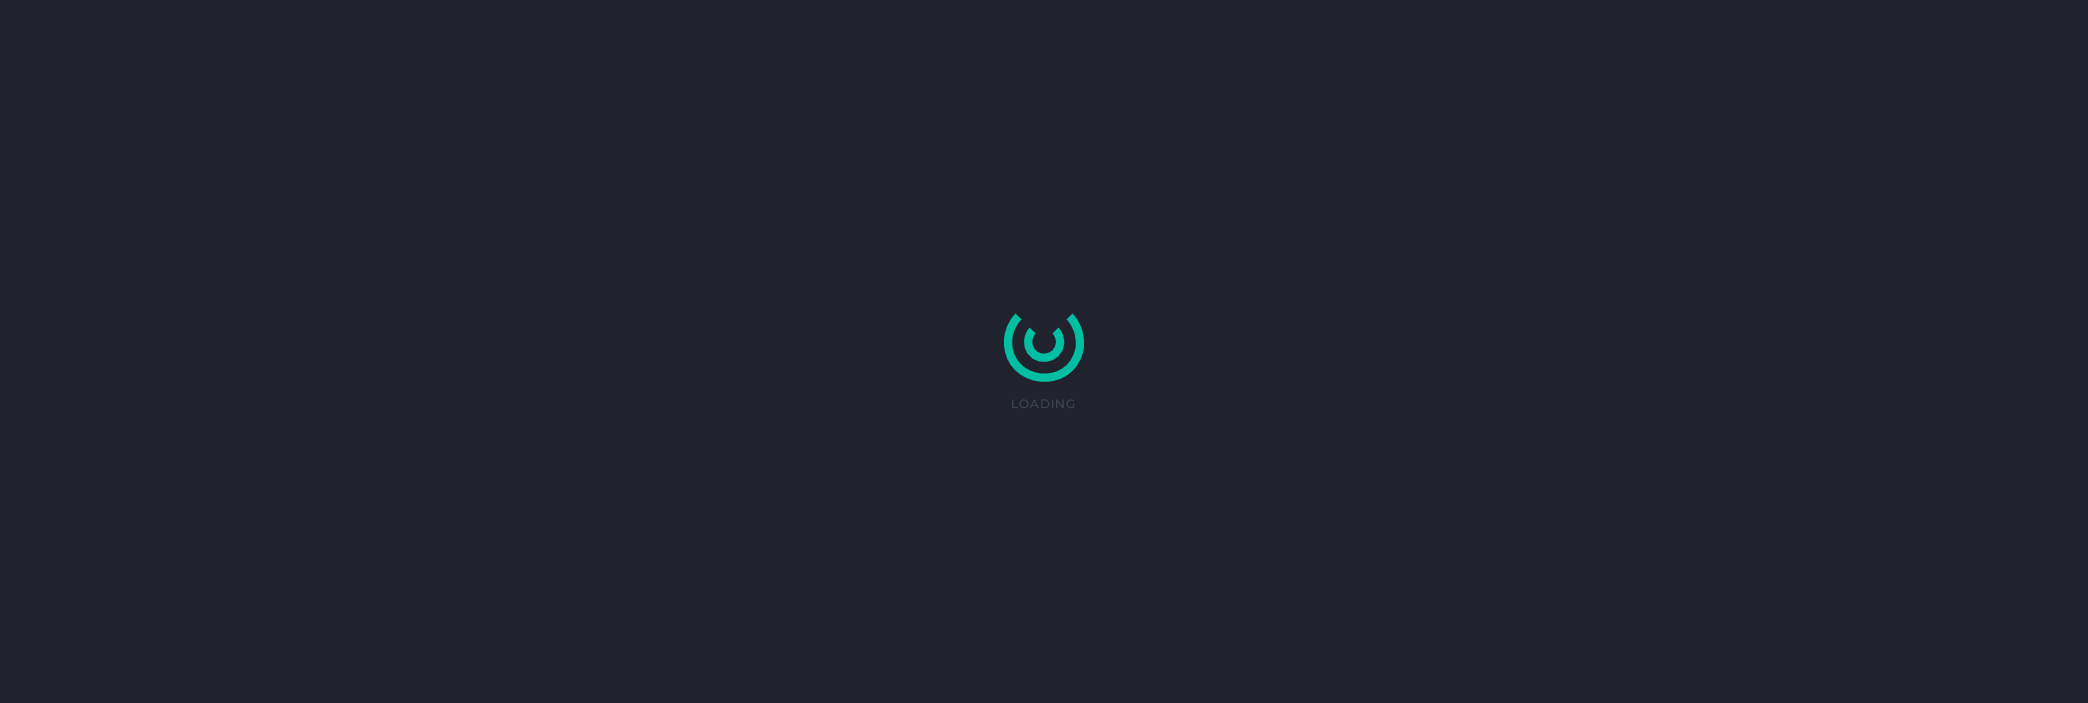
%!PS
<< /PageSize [2088 703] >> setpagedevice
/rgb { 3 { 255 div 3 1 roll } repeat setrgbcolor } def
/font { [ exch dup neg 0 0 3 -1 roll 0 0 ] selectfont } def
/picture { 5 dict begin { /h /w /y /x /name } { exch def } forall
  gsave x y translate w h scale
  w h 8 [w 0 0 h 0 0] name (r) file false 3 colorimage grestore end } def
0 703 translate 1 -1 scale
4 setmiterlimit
255 255 255 rgb
0 0 2088 703 rectfill
(img_01.rgb) 0 0 2088 703 picture
2 190 162 rgb
8 setlinewidth
1069.5 316.5 moveto 8.5 8.5 12 21 10 32.5 rcurveto -8.5 42.5 -71.5 36 -71.5 -7 rcurveto 0 -9.5 4 -19 10.5 -25.5 rcurveto stroke
1055.5 330.5 moveto 3 3 4.5 7.5 4.5 11.5 rcurveto 0 19 -28 22 -31.5 3 rcurveto -1 -5 0.5 -10.5 4 -14.5 rcurveto stroke
/Montserrat-Regular 12 font
74 78 92 rgb
1011 408 moveto 1 0 (LOADING) ashow
showpage
